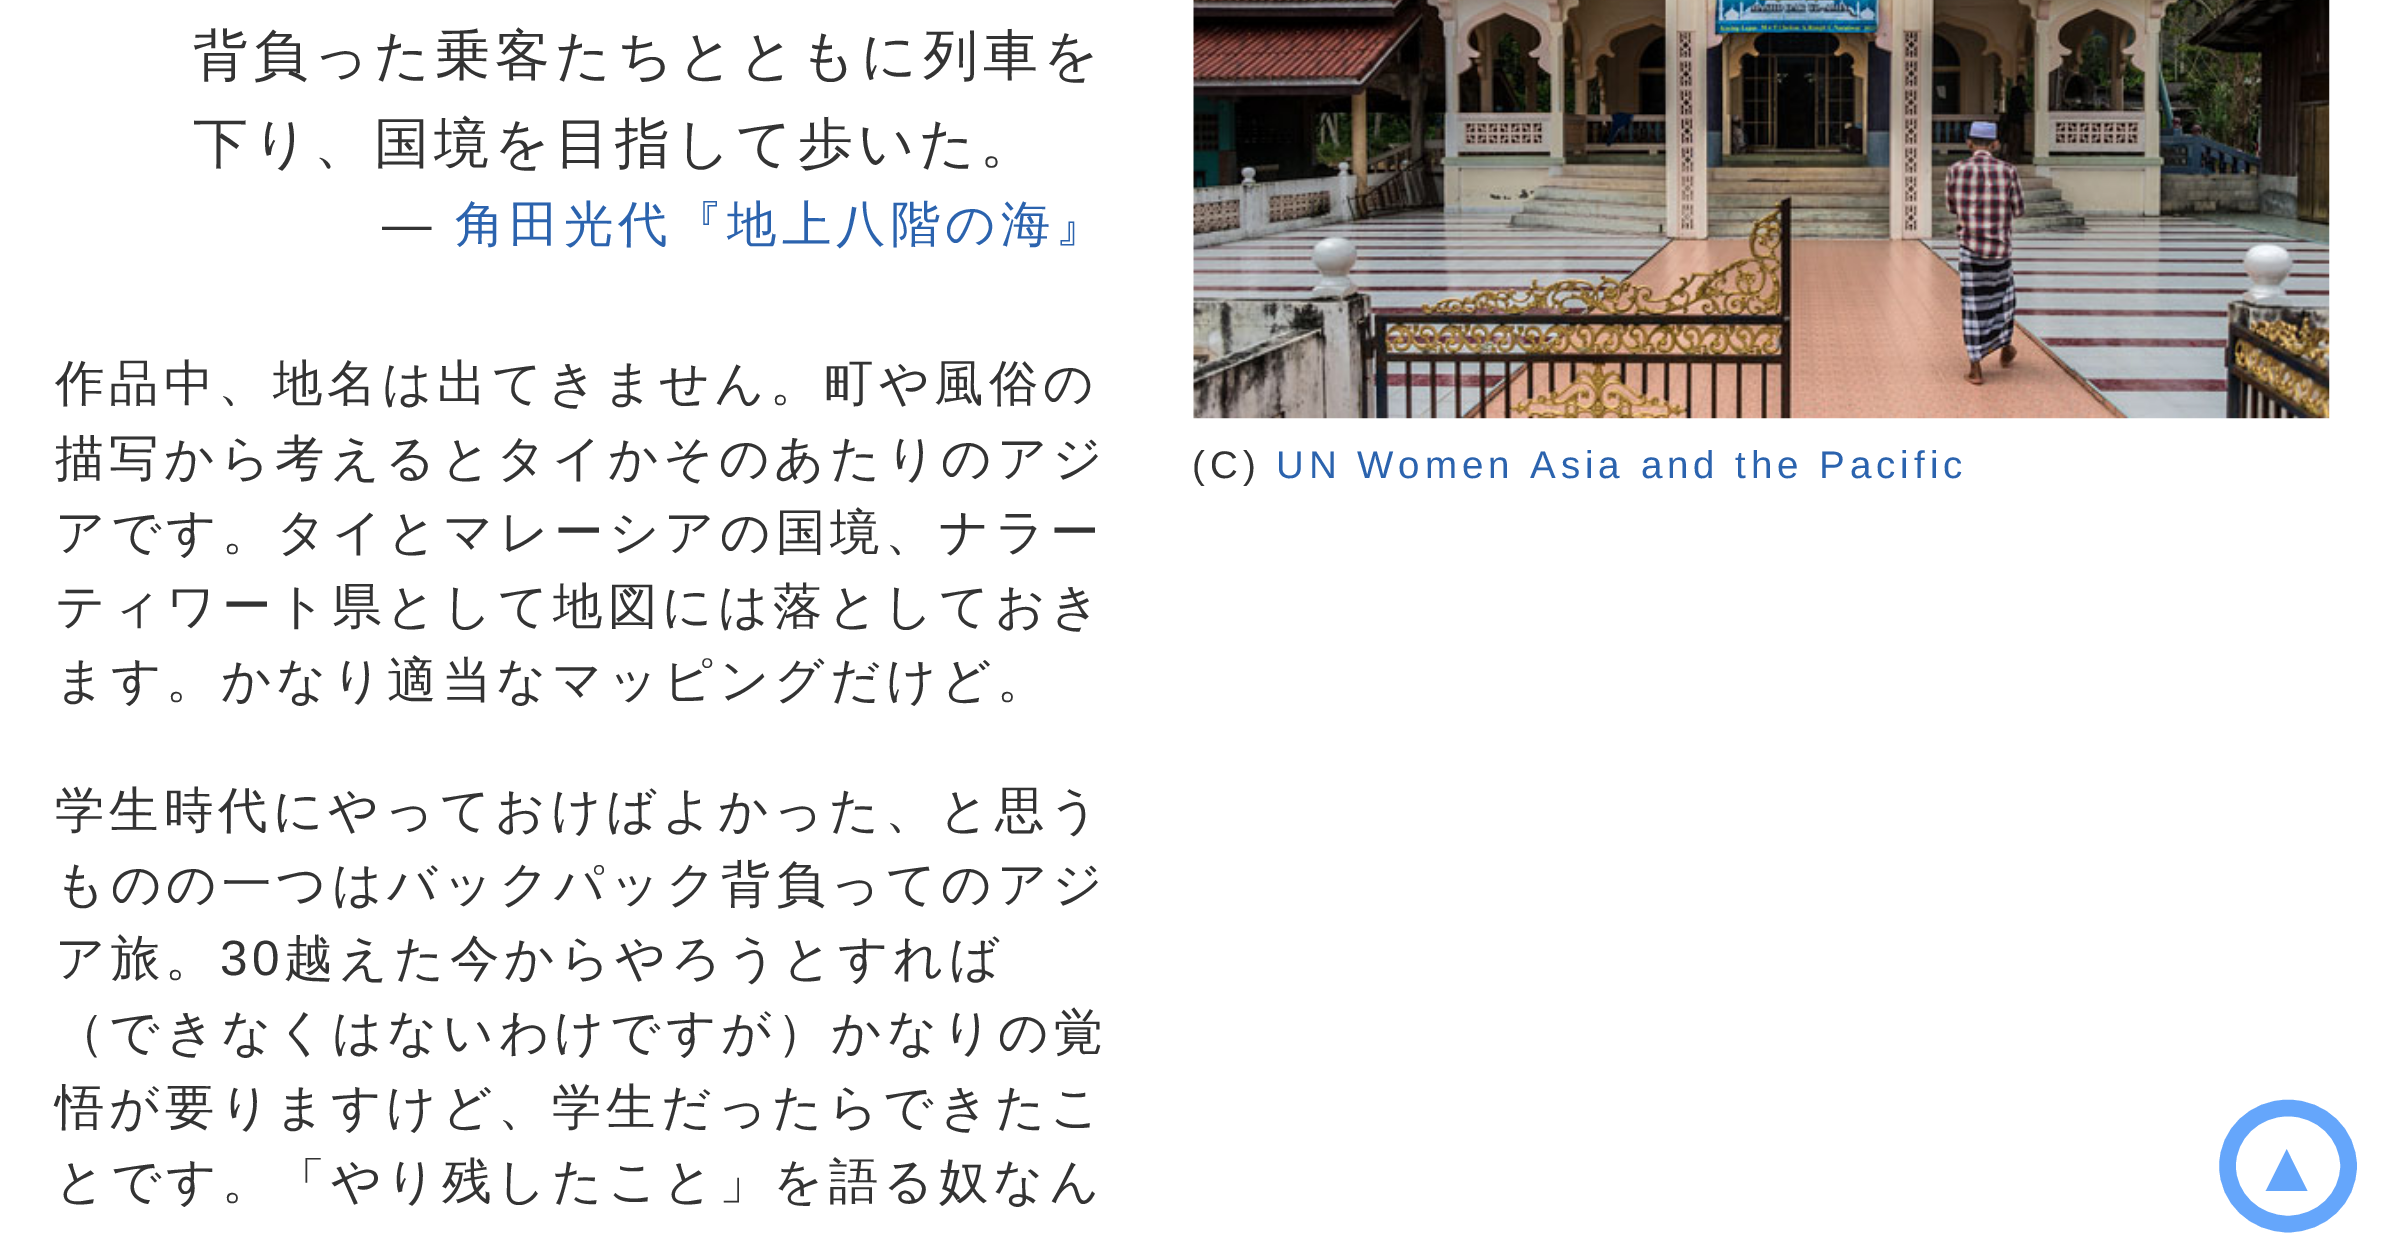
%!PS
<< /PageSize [2383 1258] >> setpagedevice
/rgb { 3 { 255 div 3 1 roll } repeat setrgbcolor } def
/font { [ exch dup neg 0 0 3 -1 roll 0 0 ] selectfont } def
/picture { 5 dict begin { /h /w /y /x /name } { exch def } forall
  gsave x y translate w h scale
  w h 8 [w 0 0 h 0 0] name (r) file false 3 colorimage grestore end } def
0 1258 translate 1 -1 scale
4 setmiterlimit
255 255 255 rgb
0 0 2383 1258 rectfill
(img_01.rgb) 1193 0 1137 419 picture
101 166 251 rgb
16.5 setlinewidth
2288 1108 moveto 33.5 0 60.5 26 60.5 58 rcurveto 0 32 -27 58 -60.5 58 rcurveto -33.5 0 -60.5 -26 -60.5 -58 rcurveto 0 -32 27 -58 60.5 -58 rcurveto closepath stroke
/WenQuanYiZenHei-Medium 55 font
51 51 51 rgb
193 74 moveto 4.95 0 (背負った乗客たちとともに列車を) ashow
193 162 moveto 4.95 0 (下り、国境を目指して歩いた。) ashow
/LiberationSans-Regular 49.5 font
382 241 moveto 4.95 0 (—) ashow
/WenQuanYiZenHei-Medium 49.5 font
43 99 174 rgb
455 241 moveto 4.95 0 (角田光代『地上八階の海』) ashow
51 51 51 rgb
55 400 moveto 4.95 0 (作品中、地名は出てきません。町や風俗の) ashow
55 475 moveto 4.95 0 (描写から考えるとタイかそのあたりのアジ) ashow
55 549 moveto 4.95 0 (アです。タイとマレーシアの国境、ナラー) ashow
55 623 moveto 4.95 0 (ティワート県として地図には落としておき) ashow
55 697 moveto 4.95 0 (ます。かなり適当なマッピングだけど。) ashow
55 827 moveto 4.95 0 (学生時代にやっておけばよかった、と思う) ashow
55 901 moveto 4.95 0 (ものの一つはバックパック背負ってのアジ) ashow
55 975 moveto 4.95 0 (ア旅。) ashow
/LiberationSans-Regular 49.5 font
220 975 moveto 4.95 0 (30) ashow
/WenQuanYiZenHei-Medium 49.5 font
284 975 moveto 4.95 0 (越えた今からやろうとすれば) ashow
55 1049 moveto 4.95 0 (（できなくはないわけですが）かなりの覚) ashow
55 1124 moveto 4.95 0 (悟が要りますけど、学生だったらできたこ) ashow
55 1198 moveto 4.95 0 (とです。「やり残したこと」を語る奴なん) ashow
/LiberationSans-Regular 38.5 font
1192 478 moveto 4.95 0 (\(C\)) ashow
43 99 174 rgb
1276 478 moveto 4.95 0 (UN Women Asia and the Pacific) ashow
/LiberationSans-Regular 72 font
101 166 251 rgb
2251 1191 moveto 4.95 0 (▲) ashow
showpage
